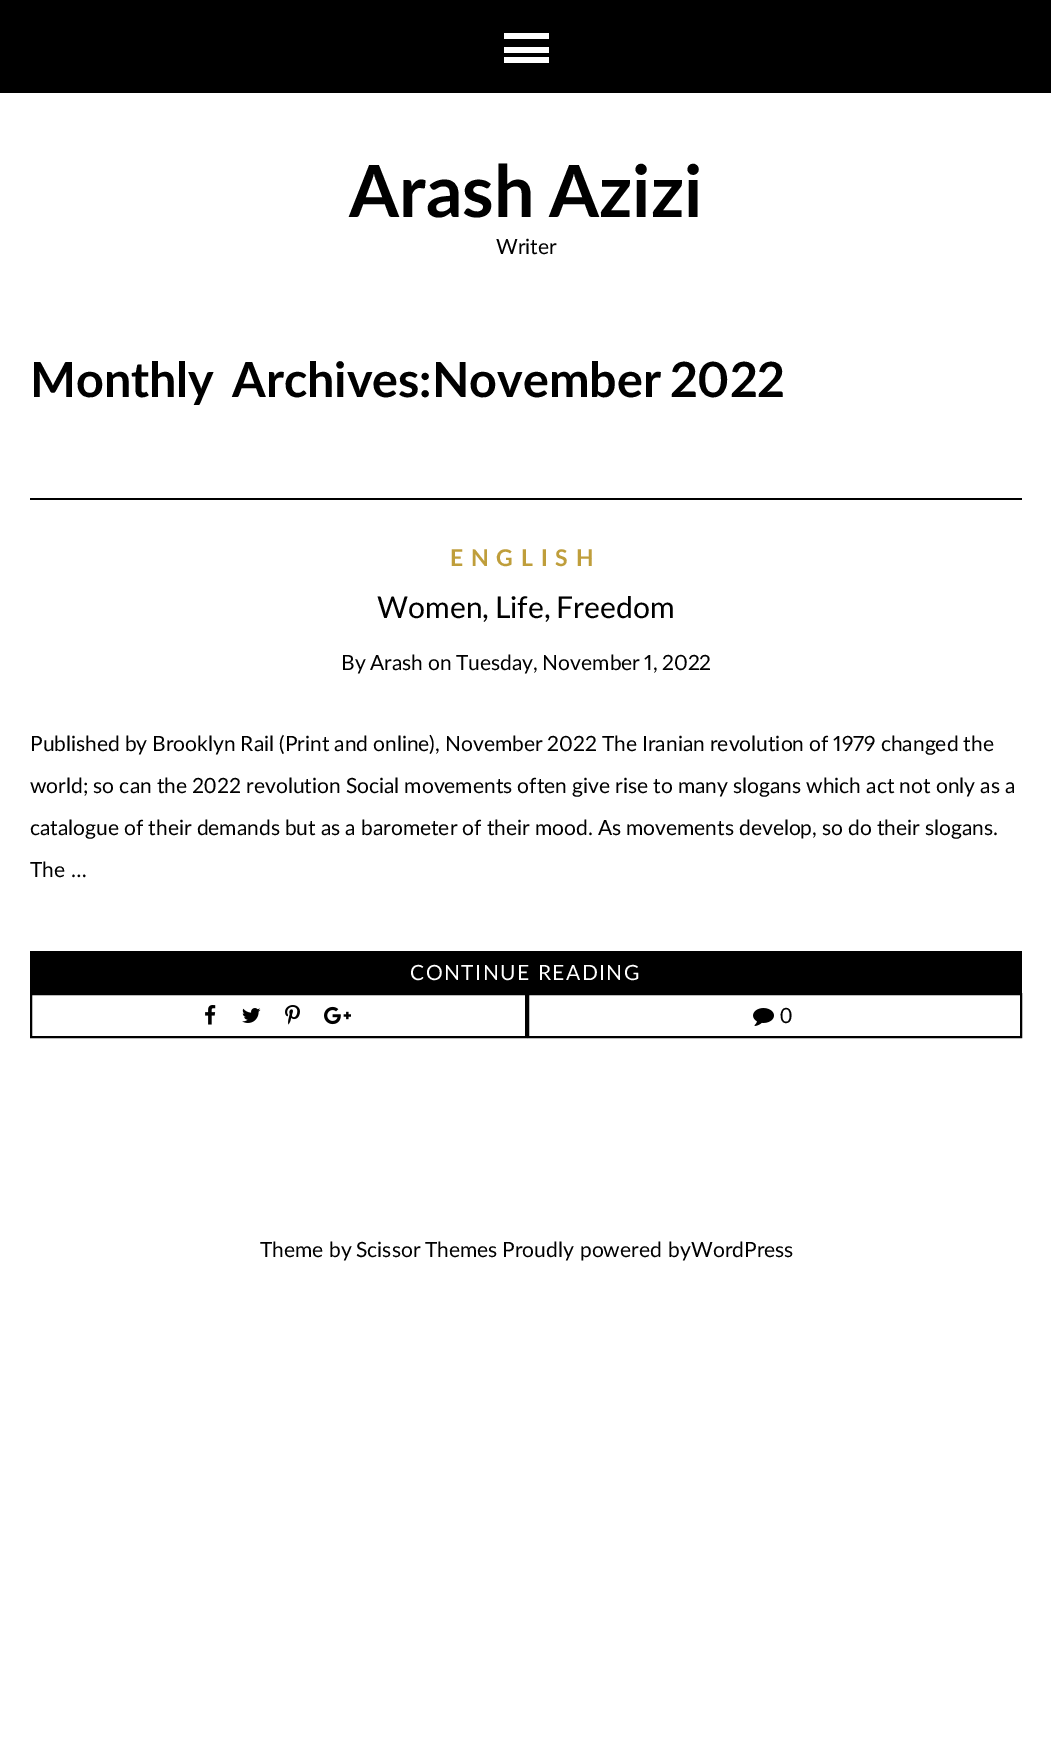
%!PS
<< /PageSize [1051 1747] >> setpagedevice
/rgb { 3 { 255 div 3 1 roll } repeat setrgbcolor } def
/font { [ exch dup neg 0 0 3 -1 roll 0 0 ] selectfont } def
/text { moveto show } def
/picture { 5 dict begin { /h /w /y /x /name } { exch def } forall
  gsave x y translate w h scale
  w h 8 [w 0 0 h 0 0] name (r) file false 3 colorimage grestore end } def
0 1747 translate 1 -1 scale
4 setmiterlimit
255 255 255 rgb
0 0 1051 1747 rectfill
0 0 0 rgb
0 0 1051 93 rectfill
255 255 255 rgb
504 33 45 6 rectfill
504 47 45 6 rectfill
504 57 45 6 rectfill
0 0 0 rgb
30 498 992 2 rectfill
30 951 992 42 rectfill
2 setlinewidth
31 994 495 43 rectstroke
(img_01.rgb) 205 1005 11 20 picture
(img_02.rgb) 242 1008 19 15 picture
(img_03.rgb) 285 1005 15 20 picture
(img_04.rgb) 324 1006 27 19 picture
528 994 493 43 rectstroke
(img_05.rgb) 753 1008 21 18 picture
/Lato-Bold 72 font
349 217 moveto -3 0 32 (Arash Azizi) widthshow
/Lato-Regular 21 font
(Writer) 496 254 text
/Lato-Bold 48.5 font
30 397 moveto 6 0 32 (Monthly Archives:) widthshow
/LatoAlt-Bold 48.5 font
432 397 moveto -3 0 32 (November 2022) widthshow
/Lato-Bold 23 font
191 158 59 rgb
450 566 moveto 7.75 0 (ENGLISH) ashow
/Lato-Regular 30 font
0 0 0 rgb
377 618 moveto -2 0 32 (Women, Life, Freedom) widthshow
/Lato-Regular 21 font
(By) 341 670 text
(Arash on) 370 670 text
/LatoAlt-Regular 21 font
456 670 moveto -1 0 32 (Tuesday, November 1, 2022) widthshow
30 751 moveto -0.4 0 32 (Published by Brooklyn Rail \(Print and online\), November 2022 The Iranian revolution of 1979 changed the) widthshow
/Lato-Regular 21 font
30 793 moveto -0.25 0 32 (world; so can the 2022 revolution Social movements often give rise to many slogans which act not only as a) widthshow
30 835 moveto -0.3 0 32 (catalogue of their demands but as a barometer of their mood. As movements develop, so do their slogans.) widthshow
(The …) 30 877 text
255 255 255 rgb
410 980 moveto 1.5 0 (CONTINUE READING) ashow
0 0 0 rgb
(0) 780 1023 text
(Theme by) 260 1257 text
356 1257 moveto -1 0 32 (Scissor Themes) widthshow
502 1257 moveto 1 0 32 (Proudly powered by) widthshow
(WordPress) 691 1257 text
showpage
